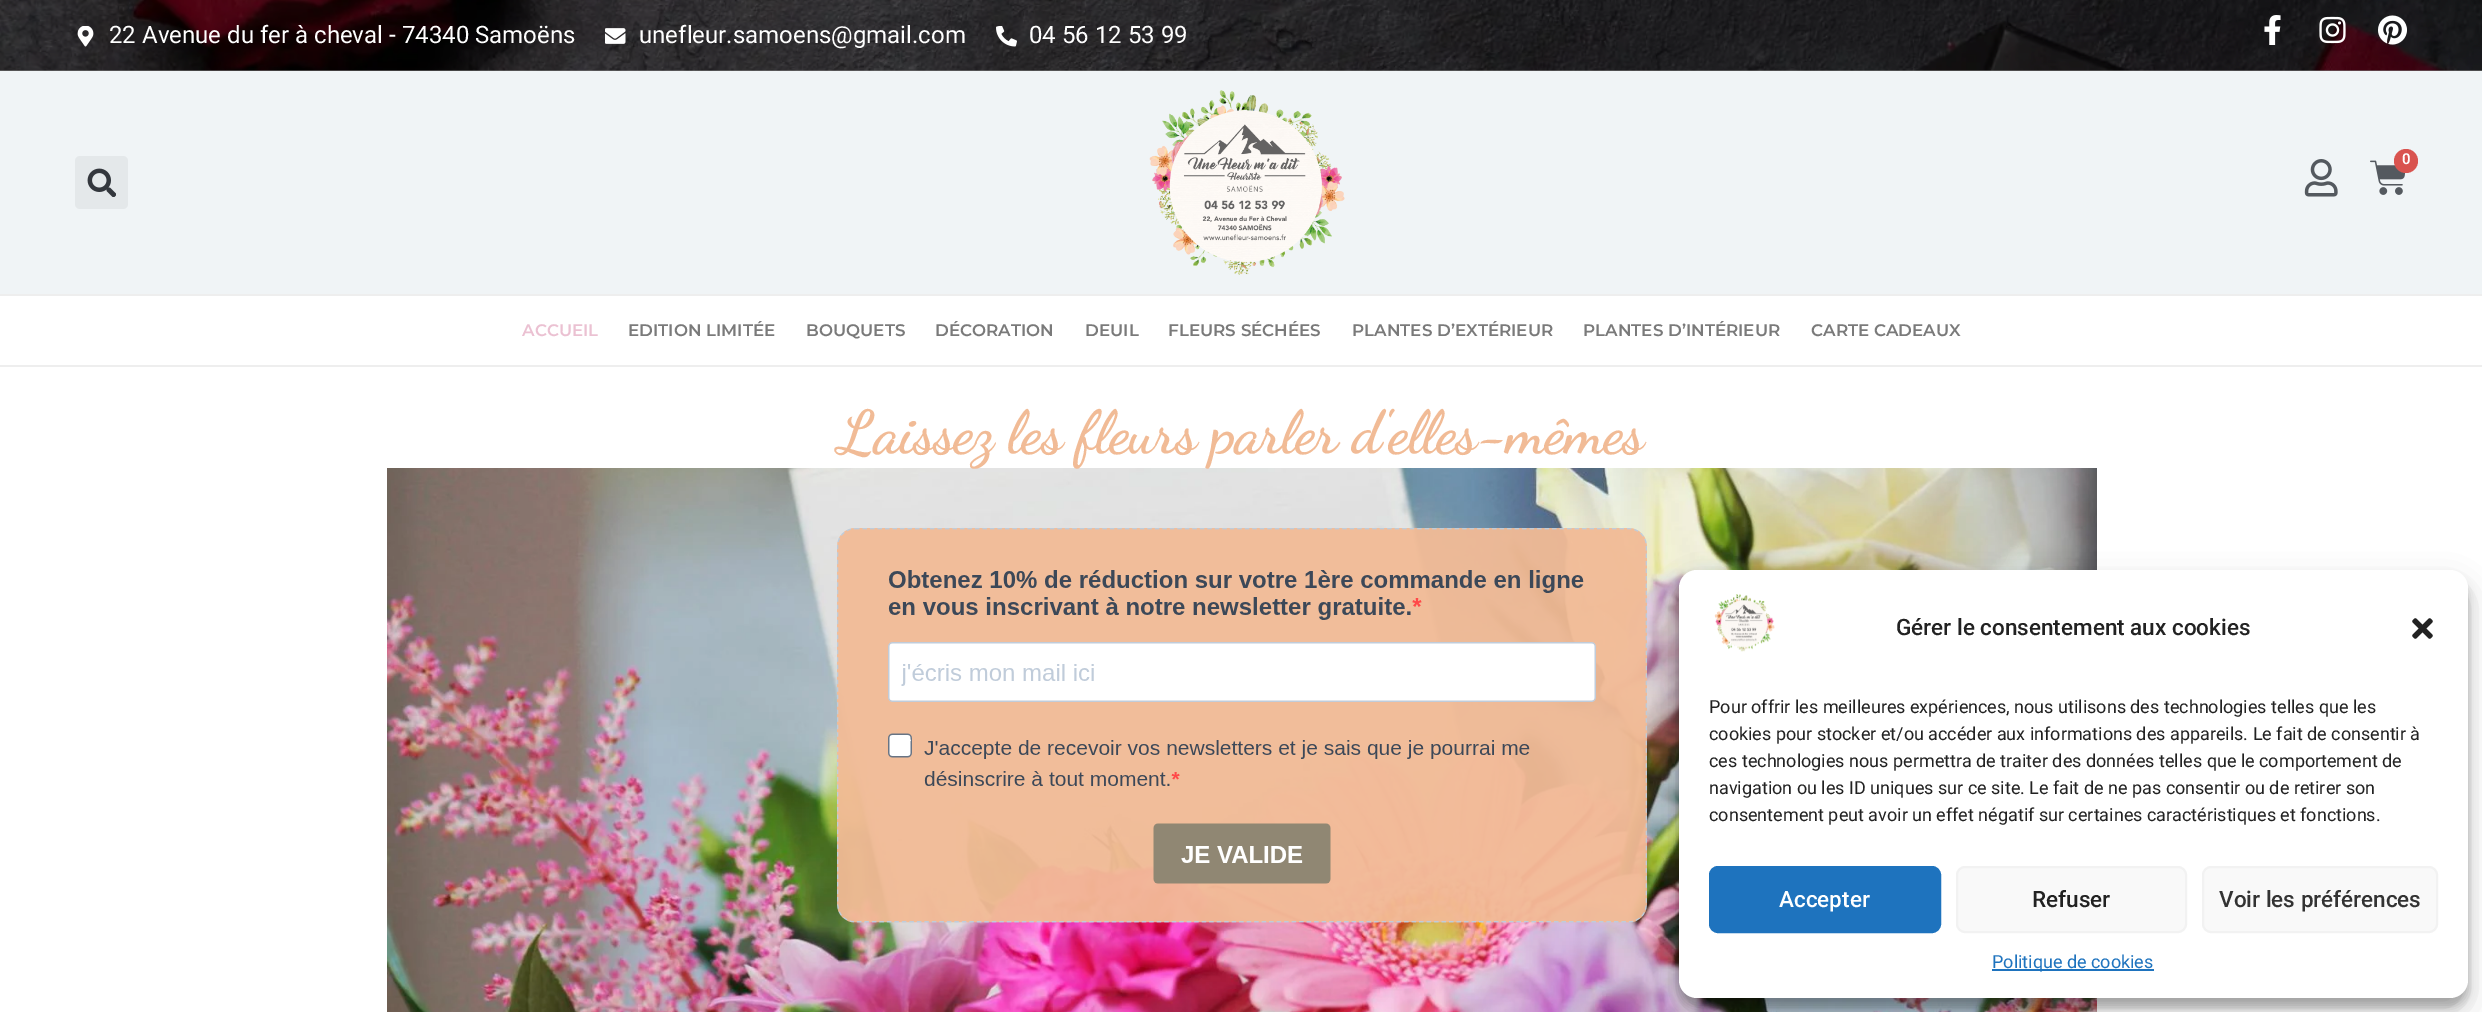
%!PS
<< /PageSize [2482 1012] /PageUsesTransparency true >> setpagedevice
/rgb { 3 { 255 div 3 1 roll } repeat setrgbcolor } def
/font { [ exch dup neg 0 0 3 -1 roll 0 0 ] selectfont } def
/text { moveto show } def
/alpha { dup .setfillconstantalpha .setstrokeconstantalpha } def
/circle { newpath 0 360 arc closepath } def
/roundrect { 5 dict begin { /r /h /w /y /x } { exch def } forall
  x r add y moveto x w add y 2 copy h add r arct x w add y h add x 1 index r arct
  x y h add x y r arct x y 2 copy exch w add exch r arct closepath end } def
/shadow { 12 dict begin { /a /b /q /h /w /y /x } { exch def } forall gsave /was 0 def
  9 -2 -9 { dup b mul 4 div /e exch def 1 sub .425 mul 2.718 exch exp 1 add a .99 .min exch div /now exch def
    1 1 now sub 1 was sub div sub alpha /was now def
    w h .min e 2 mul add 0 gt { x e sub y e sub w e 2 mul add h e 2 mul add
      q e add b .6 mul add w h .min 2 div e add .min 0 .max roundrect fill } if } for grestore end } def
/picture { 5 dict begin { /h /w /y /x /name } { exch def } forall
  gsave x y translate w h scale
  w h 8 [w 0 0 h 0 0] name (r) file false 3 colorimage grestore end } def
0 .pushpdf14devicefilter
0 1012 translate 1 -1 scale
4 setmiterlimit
255 255 255 rgb
0 0 2482 1012 rectfill
128 128 128 rgb
0 70 2482 1 rectfill
(img_01.rgb) 0 0 2482 71 picture
(img_02.rgb) 77 26 17 21 picture
(img_03.rgb) 605 28 21 16 picture
(img_04.rgb) 996 26 21 21 picture
(img_05.rgb) 2264 15 17 30 picture
(img_06.rgb) 2319 16 27 28 picture
(img_07.rgb) 2378 15 29 30 picture
240 244 246 rgb
0 71 2482 223 rectfill
228 232 234 rgb
75 156 53 53 5 roundrect fill
(img_08.rgb) 87 168 29 29 picture
(img_09.rgb) 1149 90 196 185 picture
(img_10.rgb) 2304 159 34 38 picture
(img_11.rgb) 2370 160 36 35 picture
217 83 79 rgb
2406 161 12 circle fill
238 238 238 rgb
0 294 2482 2 rectfill
0 365 2482 2 rectfill
(img_12.rgb) 387 468 1710 544 picture
0 0 0 rgb
1679 579 789 428 18 4.5 0.23 shadow
1679 585 789 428 18 15 0.19 shadow
255 255 255 rgb
1679 570 789 428 18 roundrect fill
(img_13.rgb) 1714 594 61 58 picture
(img_14.rgb) 2412 618 21 21 picture
30 115 190 rgb
1710 867 230 65 8 roundrect gsave fill grestore
2 setlinewidth
stroke
249 249 249 rgb
1957 867 229 65 8 roundrect gsave fill grestore
242 242 242 rgb
stroke
249 249 249 rgb
2203 867 234 65 8 roundrect gsave fill grestore
242 242 242 rgb
stroke
30 115 190 rgb
1992 969 162 2 rectfill
/Roboto-Regular 24 font
255 255 255 rgb
(22 Avenue du fer à cheval - 74340 Samoëns) 109 43 text
(unefleur.samoens@gmail.com) 639 43 text
(04 56 12 53 99) 1029 43 text
/Roboto-SemiBold 15 font
(0) 2402 164 text
/Montserrat-SemiBold 16.75 font
235 193 210 rgb
(ACCUEIL) 522 336 text
122 122 122 rgb
(EDITION LIMITÉE) 628 336 text
(BOUQUETS) 806 336 text
(DÉCORATION) 935 336 text
(DEUIL) 1085 336 text
(FLEURS SÉCHÉES) 1168 336 text
(PLANTES D’EXTÉRIEUR) 1352 336 text
(PLANTES D’INTÉRIEUR) 1583 336 text
(CARTE CADEAUX) 1811 336 text
/DancingScript-Bold 60 font
241 187 150 rgb
838 452 moveto -0.75 0 (Laissez les fleurs parler d'elles-mêmes) ashow
/Roboto-Medium 22.5 font
34 34 34 rgb
(Gérer le consentement aux cookies) 1896 635 text
/Roboto-Regular 18 font
(Pour offrir les meilleures expériences, nous utilisons des technologies telles que les) 1709 713 text
(cookies pour stocker et/ou accéder aux informations des appareils. Le fait de consentir à) 1709 740 text
(ces technologies nous permettra de traiter des données telles que le comportement de) 1709 767 text
(navigation ou les ID uniques sur ce site. Le fait de ne pas consentir ou de retirer son) 1709 794 text
(consentement peut avoir un effet négatif sur certaines caractéristiques et fonctions.) 1709 821 text
/Roboto-Medium 22.5 font
255 255 255 rgb
(Accepter) 1779 907 text
34 34 34 rgb
(Refuser) 2032 907 text
51 51 51 rgb
(Voir les préférences) 2219 907 text
/Roboto-Regular 18 font
30 115 190 rgb
(Politique de cookies) 1992 968 text
.poppdf14devicefilter showpage
